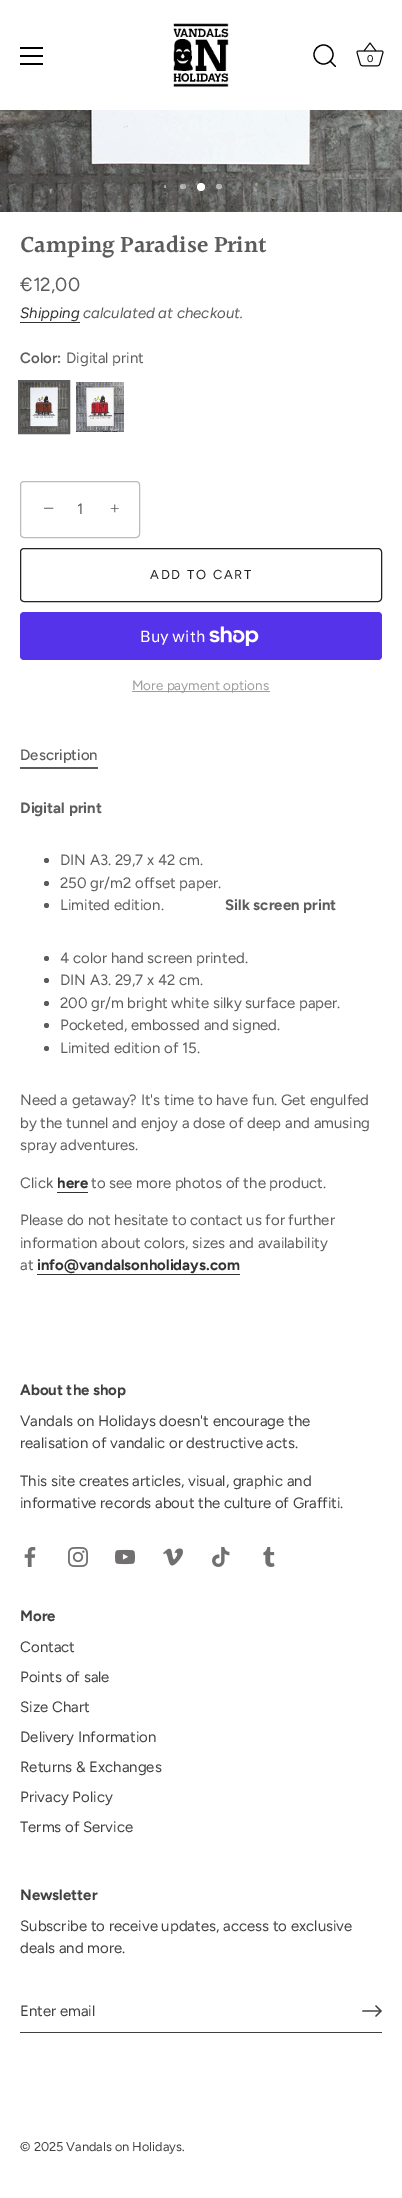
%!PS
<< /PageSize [402 2198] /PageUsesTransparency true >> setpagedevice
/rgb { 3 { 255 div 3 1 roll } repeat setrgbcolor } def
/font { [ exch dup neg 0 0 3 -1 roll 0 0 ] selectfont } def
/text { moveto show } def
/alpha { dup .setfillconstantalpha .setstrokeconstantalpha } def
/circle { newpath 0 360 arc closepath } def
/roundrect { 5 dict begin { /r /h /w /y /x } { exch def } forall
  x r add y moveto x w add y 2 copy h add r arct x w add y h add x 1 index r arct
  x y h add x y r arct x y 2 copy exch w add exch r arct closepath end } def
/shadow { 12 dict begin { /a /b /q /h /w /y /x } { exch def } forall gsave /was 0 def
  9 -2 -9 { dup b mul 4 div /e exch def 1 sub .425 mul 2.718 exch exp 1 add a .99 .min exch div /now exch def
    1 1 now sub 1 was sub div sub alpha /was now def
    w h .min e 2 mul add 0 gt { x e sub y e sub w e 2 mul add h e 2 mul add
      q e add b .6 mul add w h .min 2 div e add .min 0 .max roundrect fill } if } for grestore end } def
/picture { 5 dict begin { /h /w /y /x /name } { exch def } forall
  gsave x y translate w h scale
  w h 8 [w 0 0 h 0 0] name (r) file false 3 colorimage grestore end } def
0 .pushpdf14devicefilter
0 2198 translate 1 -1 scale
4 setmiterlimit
255 255 255 rgb
0 0 402 2198 rectfill
0 0 0 rgb
20 47 23 2 rectfill
20 55 23 2 rectfill
20 63 23 2 rectfill
(img_01.rgb) 173 23 56 64 picture
1.2 setlinewidth
323.5 54.5 9.5 circle stroke
1 setlinecap
1 setlinejoin
335.5 66.5 moveto -5.5 -5.5 rlineto stroke
(img_02.rgb) 356 42 28 25 picture
(img_03.rgb) 0 110 402 102 picture
0.5 alpha
255 255 255 rgb
164 185 2 3 1 roundrect fill
180 184 6 5 2.5 roundrect fill
1 alpha
0 0 0 rgb
197 183 8 8 4 1 0.2 shadow
255 255 255 rgb
201 187 4 circle fill
0.5 alpha
216 184 6 5 2.5 roundrect fill
1 alpha
50 50 50 rgb
20 322 60 1 rectfill
(img_04.rgb) 20 382 48 50 picture
92 92 92 rgb
2 setlinewidth
0 setlinecap
0 setlinejoin
19 381 50 52 rectstroke
(img_05.rgb) 76 382 48 50 picture
187 187 187 rgb
1 setlinewidth
20.5 481.5 119 56 3.5 roundrect stroke
35 35 35 rgb
20.5 548.5 361 53 3.5 roundrect stroke
84 51 235 rgb
20 612 362 48 4 roundrect fill
(img_06.rgb) 209 626 50 20 picture
157 157 157 rgb
132 691 138 1 rectfill
92 92 92 rgb
20 767 78 2 rectfill
46.5 860.5 2.5 circle fill
46.5 883.5 2.5 circle fill
46.5 905.5 2.5 circle fill
46.5 958.5 2.5 circle fill
46.5 980.5 2.5 circle fill
46.5 1003.5 2.5 circle fill
46.5 1025.5 2.5 circle fill
46.5 1048.5 2.5 circle fill
50 50 50 rgb
57 1192 31 1 rectfill
37 1274 203 1 rectfill
(img_07.rgb) 24 1547 12 20 picture
(img_08.rgb) 68 1547 20 20 picture
(img_09.rgb) 115 1549 20 16 picture
(img_10.rgb) 163 1548 20 18 picture
(img_11.rgb) 212 1547 18 20 picture
(img_12.rgb) 263 1547 12 20 picture
66 63 63 rgb
20 2032 362 1 rectfill
1.3 setlinewidth
1 setlinecap
376 2016 moveto 5 -5 rlineto -5 -5 rlineto stroke
1 setlinejoin
380 2011 moveto -17 0 rlineto stroke
/Figtree-Regular 10 font
0 0 0 rgb
(0) 367 62 text
/Halant-SemiBold 23.4 font
92 92 92 rgb
(Camping Paradise Print) 20 253 text
/Figtree-Regular 19 font
(€12,00) 20 291 text
/Figtree-Italic 15 font
50 50 50 rgb
(Shipping) 20 318 text
92 92 92 rgb
(calculated at checkout.) 83 318 text
/Figtree-SemiBold 15 font
(Color:) 20 363 text
/Figtree-Regular 15 font
(Digital print) 66 363 text
/LiberationSerif-Regular 20 font
(−) 43 515 text
/Figtree-Regular 15 font
77 514 moveto 1 0 (1) ashow
/LiberationSerif-Regular 17 font
(+) 110 514 text
/Figtree-Regular 13 font
35 35 35 rgb
150 579 moveto 1.75 0 (ADD TO CART) ashow
/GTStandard-Regular 16 font
255 255 255 rgb
(Buy with) 140 642 text
/Figtree-Regular 13.5 font
157 157 157 rgb
(More payment options) 132 690 text
/Figtree-Medium 15 font
92 92 92 rgb
(Description) 20 760 text
/Figtree-Bold 15 font
(Digital print) 20 813 text
/Figtree-Regular 15 font
(DIN A3. 29,7 x 42 cm.) 60 865 text
(250 gr/m2 offset paper.) 60 888 text
(Limited edition.) 60 910 text
/Figtree-Bold 15 font
(Silk screen print) 225 910 text
/Figtree-Regular 15 font
(4 color hand screen printed.) 60 963 text
(DIN A3. 29,7 x 42 cm.) 60 985 text
(200 gr/m bright white silky surface paper.) 60 1008 text
(Pocketed, embossed and signed.) 60 1030 text
(Limited edition of 15.) 60 1053 text
(Need a getaway? It's time to have fun. Get engulfed) 20 1105 text
(by the tunnel and enjoy a dose of deep and amusing) 20 1128 text
(spray adventures.) 20 1150 text
(Click) 20 1188 text
/Figtree-Bold 15 font
50 50 50 rgb
(here) 57 1188 text
/Figtree-Regular 15 font
92 92 92 rgb
(to see more photos of the product.) 91 1188 text
(Please do not hesitate to contact us for further) 20 1225 text
(information about colors, sizes and availability) 20 1248 text
(at) 20 1270 text
/Figtree-Bold 15 font
50 50 50 rgb
(info@vandalsonholidays.com) 37 1270 text
66 63 63 rgb
(About the shop) 20 1395 text
/Figtree-Regular 15 font
(Vandals on Holidays doesn't encourage the) 20 1426 text
(realisation of vandalic or destructive acts.) 20 1448 text
(This site creates articles, visual, graphic and) 20 1486 text
(informative records about the culture of Graffiti.) 20 1508 text
/Figtree-Bold 15 font
(More) 20 1621 text
/Figtree-Regular 15 font
(Contact) 20 1652 text
(Points of sale) 20 1682 text
(Size Chart) 20 1712 text
(Delivery Information) 20 1742 text
(Returns & Exchanges) 20 1772 text
(Privacy Policy) 20 1802 text
(Terms of Service) 20 1832 text
/Figtree-Bold 15 font
(Newsletter) 20 1900 text
/Figtree-Regular 15 font
(Subscribe to receive updates, access to exclusive) 20 1931 text
(deals and more.) 20 1953 text
(Enter email) 20 2016 text
/Figtree-Regular 12.75 font
(© 2025 Vandals on Holidays.) 20 2151 text
.poppdf14devicefilter showpage
